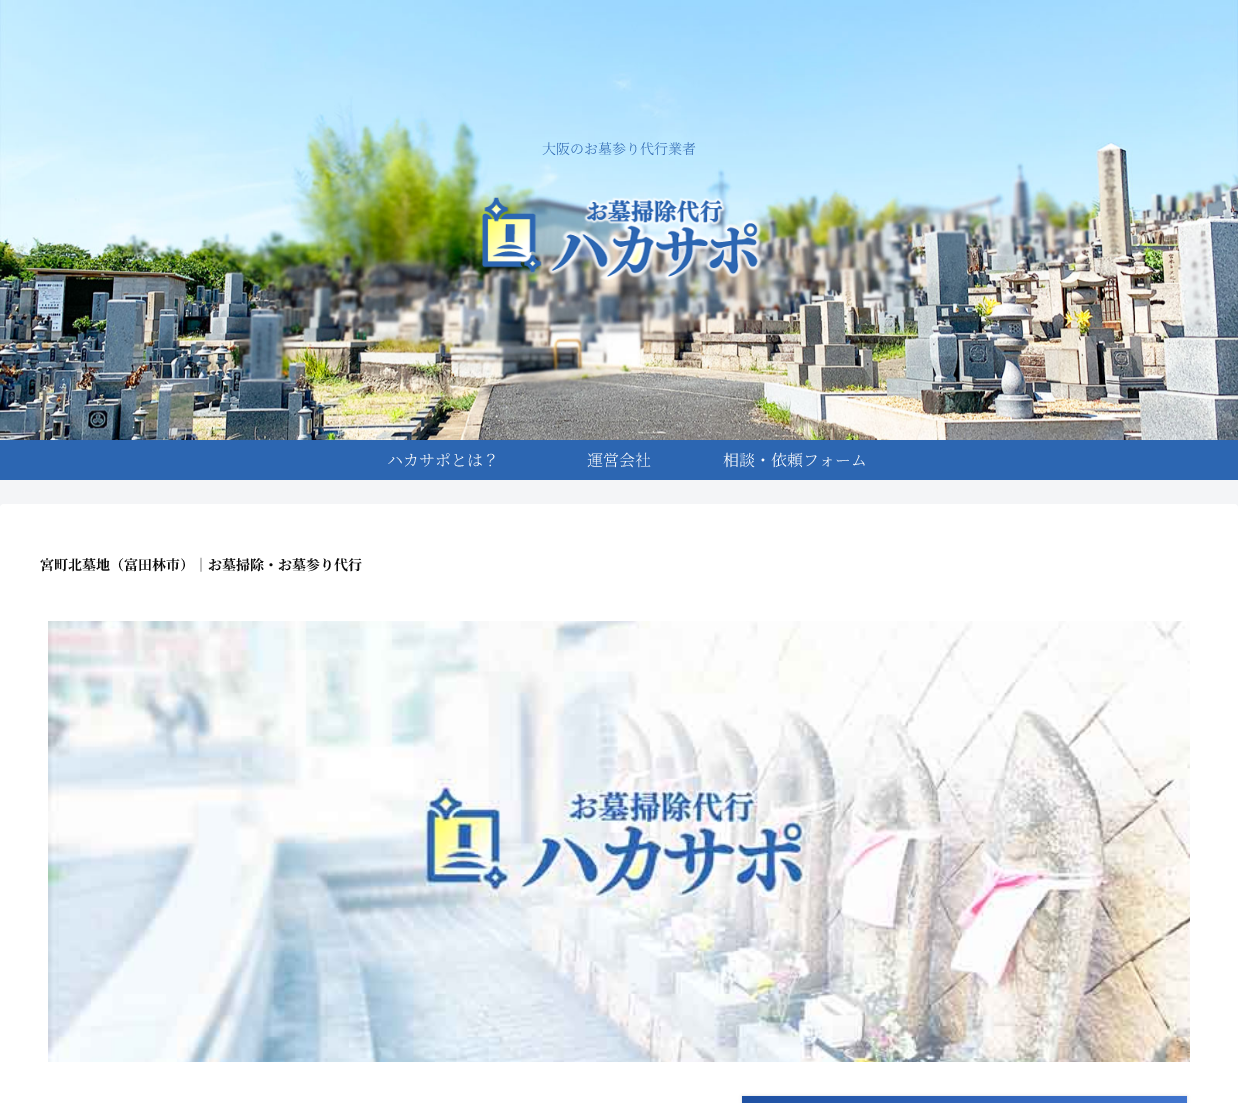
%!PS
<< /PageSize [1238 1103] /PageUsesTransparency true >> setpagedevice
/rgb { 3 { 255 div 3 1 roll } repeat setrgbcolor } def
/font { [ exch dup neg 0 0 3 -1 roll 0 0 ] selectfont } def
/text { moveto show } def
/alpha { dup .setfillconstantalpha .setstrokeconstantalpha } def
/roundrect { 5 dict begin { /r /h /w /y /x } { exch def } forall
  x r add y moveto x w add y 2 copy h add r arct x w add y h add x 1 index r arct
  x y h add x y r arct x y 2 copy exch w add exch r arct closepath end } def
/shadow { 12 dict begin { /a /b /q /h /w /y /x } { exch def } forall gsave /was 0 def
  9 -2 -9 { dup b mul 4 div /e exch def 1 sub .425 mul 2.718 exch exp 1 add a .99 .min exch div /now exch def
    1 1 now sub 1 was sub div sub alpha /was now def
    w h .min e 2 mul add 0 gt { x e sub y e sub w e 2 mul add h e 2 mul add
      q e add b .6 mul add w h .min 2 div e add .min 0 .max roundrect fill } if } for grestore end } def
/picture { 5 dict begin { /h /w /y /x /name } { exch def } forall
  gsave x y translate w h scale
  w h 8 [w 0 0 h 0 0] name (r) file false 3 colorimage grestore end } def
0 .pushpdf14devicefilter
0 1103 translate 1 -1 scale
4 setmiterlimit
244 245 247 rgb
0 0 1238 1103 rectfill
(img_01.rgb) 0 0 1238 440 picture
(img_02.rgb) 481 197 281 84 picture
44 102 178 rgb
0 440 1238 40 rectfill
255 255 255 rgb
0 504 1238 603 4 roundrect fill
(img_03.rgb) 48 621 1142 441 picture
221 221 221 rgb
742 1096 445 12 0 1.5 1 shadow
gsave 742 1096 moveto 445 0 rlineto 0 7 rlineto -445 0 rlineto closepath clip newpath
<< /ShadingType 2 /ColorSpace /DeviceRGB /Coords [933 1038 1008 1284] /Extend [true true] /Function << /FunctionType 3 /Domain [0 1] /Functions [<< /FunctionType 2 /Domain [0 1] /C0 [0.118 0.314 0.635] /C1 [0.267 0.471 0.82] /N 1 >> << /FunctionType 2 /Domain [0 1] /C0 [0.267 0.471 0.82] /C1 [0.118 0.314 0.635] /N 1 >>] /Bounds [0.56] /Encode [0 1 0 1] >> >> shfill grestore
/NotoSerifJP-Light 14 font
44 102 178 rgb
(大阪のお墓参り代行業者) 542 154 text
/NotoSerifJP-Light 16 font
255 255 255 rgb
(ハカサポとは？) 387 466 text
(運営会社) 587 466 text
(相談・依頼フォーム) 723 466 text
/NotoSerifJP-Bold 14 font
10 10 10 rgb
(宮町北墓地（富田林市）｜お墓掃除・お墓参り代行) 40 570 text
.poppdf14devicefilter showpage
